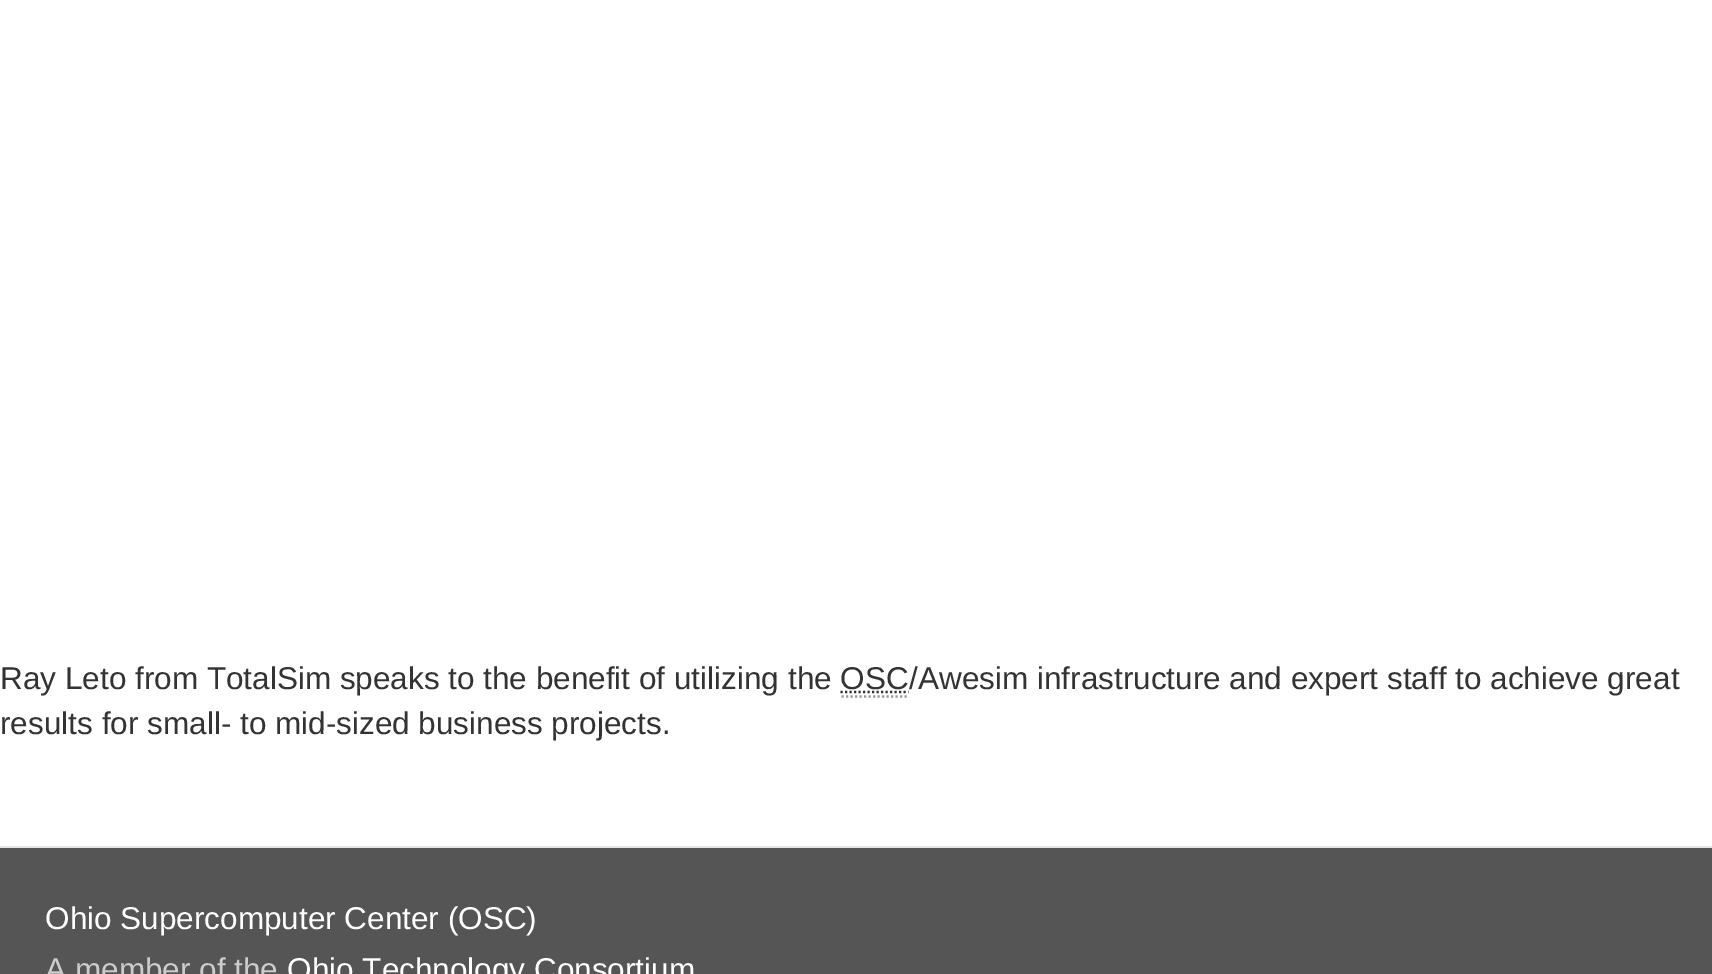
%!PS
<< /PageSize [1712 974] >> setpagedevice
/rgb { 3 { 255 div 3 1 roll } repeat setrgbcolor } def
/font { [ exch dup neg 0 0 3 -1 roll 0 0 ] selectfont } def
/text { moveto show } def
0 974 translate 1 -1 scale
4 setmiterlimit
255 255 255 rgb
0 0 1712 974 rectfill
51 51 51 rgb
2.2 setlinewidth
[2.25 2.25] 0 setdash
840.5 692 moveto 68 0 rlineto stroke
229 229 229 rgb
0 846 1712 2 rectfill
85 85 85 rgb
0 848 1712 126 rectfill
/LiberationSans-Regular 31.5 font
51 51 51 rgb
(Ray Leto from TotalSim speaks to the benefit of utilizing the OSC) 0 689 text
(/Awesim infrastructure and expert staff to achieve great) 909 689 text
153 153 153 rgb
841.5 696.5 moveto 67.5 0 rlineto stroke
51 51 51 rgb
(results for small- to mid-sized business projects.) 0 734 text
255 255 255 rgb
(Ohio Supercomputer Center \(OSC\)) 45 929 text
204 204 204 rgb
(A member of the) 45 980 text
255 255 255 rgb
(Ohio Technology Consortium) 287 980 text
showpage
